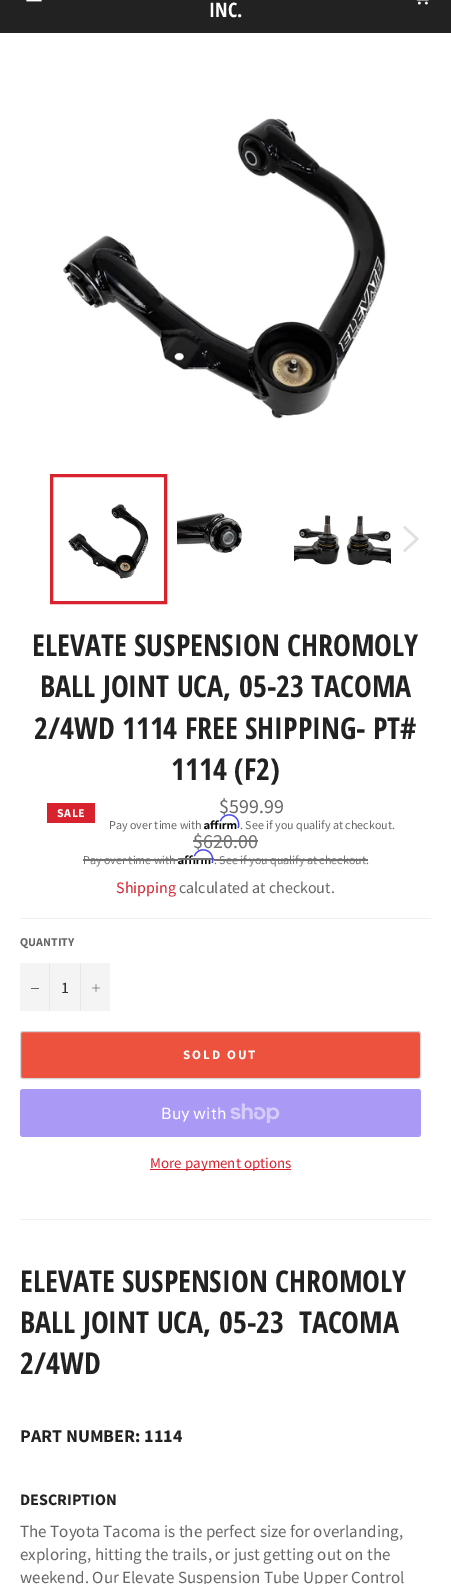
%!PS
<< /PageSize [451 1584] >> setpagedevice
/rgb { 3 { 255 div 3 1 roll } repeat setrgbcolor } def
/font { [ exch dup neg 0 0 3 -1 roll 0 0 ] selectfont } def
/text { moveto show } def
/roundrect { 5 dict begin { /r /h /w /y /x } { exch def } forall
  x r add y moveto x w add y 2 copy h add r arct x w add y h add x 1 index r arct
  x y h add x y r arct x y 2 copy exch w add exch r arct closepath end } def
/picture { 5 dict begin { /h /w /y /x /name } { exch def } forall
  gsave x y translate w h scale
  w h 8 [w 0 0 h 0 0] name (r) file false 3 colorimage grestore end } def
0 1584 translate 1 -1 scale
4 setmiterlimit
34 34 34 rgb
0 0 451 1584 rectfill
(img_01.rgb) 26 0 16 2 picture
(img_02.rgb) 416 0 13 5 picture
255 255 255 rgb
0 33 451 1551 rectfill
(img_03.rgb) 63 118 324 301 picture
(img_04.rgb) 68 504 81 75 picture
216 35 47 rgb
3 setlinewidth
51.5 475.5 114 127 rectstroke
(img_05.rgb) 177 512 65 43 picture
(img_06.rgb) 294 515 97 50 picture
224 224 224 rgb
403 527.5 moveto 2 -1.5 rlineto 14 13 rlineto -14 13 rlineto -2 -1.5 rlineto 12.5 -11.5 rlineto closepath fill
216 35 47 rgb
47 803 48 20 rectfill
(img_08.rgb) 204 820 33 10 picture
115 115 115 rgb
193 840 65 2 rectfill
83 859 95 2 rectfill
(img_08.rgb) 178 855 33 10 picture
178 858 36 2 rectfill
214 859 154 2 rectfill
240 240 240 rgb
20 918 411 1 rectfill
244 244 244 rgb
20 963 90 48 rectfill
231 231 231 rgb
49 963 1 48 rectfill
102 102 102 rgb
31 988 8 1 rectfill
231 231 231 rgb
80 963 1 48 rectfill
(img_10.rgb) 92 984 8 8 picture
236 82 62 rgb
20.5 1031.5 400 47 2.5 roundrect gsave fill grestore
213 213 213 rgb
1 setlinewidth
stroke
170 153 245 rgb
20 1089 401 48 3 roundrect fill
(img_11.rgb) 230 1103 50 20 picture
216 35 47 rgb
150 1169 141 1 rectfill
240 240 240 rgb
20 1219 411 1 rectfill
/OpenSansCondensed-Bold 20 font
255 255 255 rgb
(INC.) 209 17 text
/OpenSansCondensed-Bold 30 font
34 34 34 rgb
(ELEVATE SUSPENSION CHROMOLY) 32 656 text
(BALL JOINT UCA, 05-23 TACOMA) 40 697 text
(2/4WD 1114 FREE SHIPPING- PT#) 34 739 text
(1114 \(F2\)) 171 780 text
/SourceSansPro-Bold 12 font
255 255 255 rgb
57 817 moveto 0.5 0 (SALE) ashow
/SourceSansPro-Regular 20 font
102 102 102 rgb
($599.99) 219 813 text
/SourceSansPro-Regular 12 font
(Pay over time with) 109 829 text
(img_07.rgb) 219 814 21 15 picture
(. See if you qualify at checkout.) 240 829 text
/SourceSansPro-Regular 20 font
115 115 115 rgb
($620.00) 193 848 text
/SourceSansPro-Regular 12 font
(Pay over time with) 83 864 text
(img_09.rgb) 193 849 21 15 picture
(. See if you qualify at checkout.) 214 864 text
/SourceSansPro-Regular 16 font
216 35 47 rgb
(Shipping) 116 893 text
102 102 102 rgb
(calculated at checkout.) 179 893 text
/SourceSansPro-Bold 12 font
(QUANTITY) 20 946 text
/SourceSansPro-Regular 16 font
51 51 51 rgb
(1) 61 993 text
/SourceSansPro-Bold 13 font
255 255 255 rgb
183 1059 moveto 2 0 (SOLD OUT) ashow
/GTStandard-Regular 16 font
(Buy with) 161 1119 text
/SourceSansPro-Regular 15 font
216 35 47 rgb
(More payment options) 150 1168 text
/OpenSansCondensed-Bold 30 font
34 34 34 rgb
(ELEVATE SUSPENSION CHROMOLY) 20 1292 text
(BALL JOINT UCA, 05-23  TACOMA) 20 1333 text
(2/4WD) 20 1374 text
/SourceSansPro-Bold 18 font
(PART NUMBER: 1114) 20 1442 text
/SourceSansPro-Bold 16 font
(DESCRIPTION) 20 1505 text
/SourceSansPro-Regular 17 font
102 102 102 rgb
(The Toyota Tacoma is the perfect size for overlanding,) 20 1537 text
(exploring, hitting the trails, or just getting out on the) 20 1560 text
(weekend. Our Elevate Suspension Tube Upper Control) 20 1583 text
showpage
